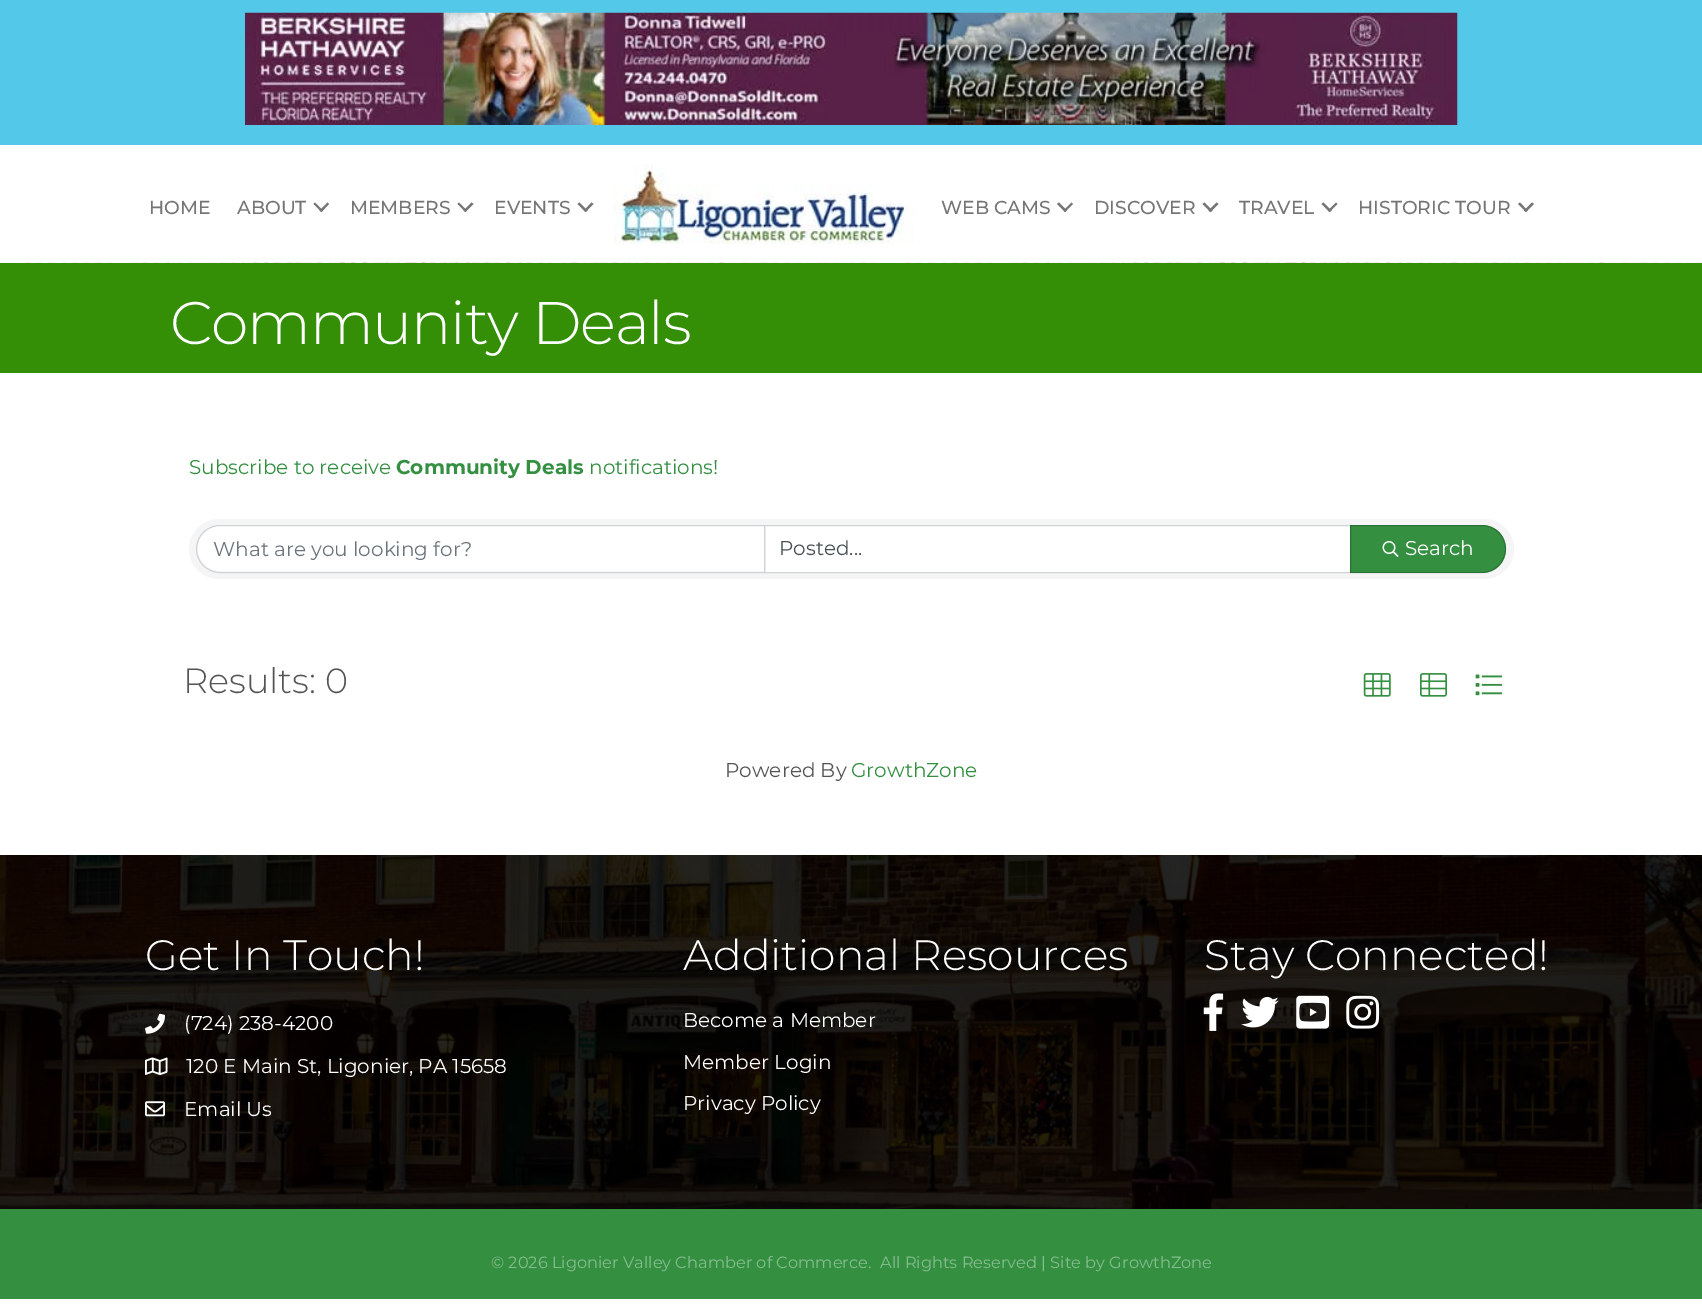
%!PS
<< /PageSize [1702 1312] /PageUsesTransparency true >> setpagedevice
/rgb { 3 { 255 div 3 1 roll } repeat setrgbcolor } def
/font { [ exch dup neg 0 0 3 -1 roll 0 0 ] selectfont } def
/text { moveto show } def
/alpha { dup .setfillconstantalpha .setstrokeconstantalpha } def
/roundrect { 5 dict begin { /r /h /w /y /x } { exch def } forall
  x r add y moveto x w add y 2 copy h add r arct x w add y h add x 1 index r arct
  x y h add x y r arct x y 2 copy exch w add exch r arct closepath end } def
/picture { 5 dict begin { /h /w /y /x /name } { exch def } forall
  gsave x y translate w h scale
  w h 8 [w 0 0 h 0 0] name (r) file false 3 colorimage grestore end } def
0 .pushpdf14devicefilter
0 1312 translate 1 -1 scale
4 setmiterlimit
255 255 255 rgb
0 0 1702 1312 rectfill
84 200 232 rgb
0 0 1702 145 rectfill
(img_01.rgb) 245 12 1213 113 picture
117 117 117 rgb
327.5 202.5 moveto 1.5 1.5 rlineto -7.5 8 rlineto -2 -1.5 rlineto closepath fill
315 202.5 moveto 8 8 rlineto -1.5 1.5 rlineto -8 -8 rlineto closepath fill
471.5 202.5 moveto 2 1.5 rlineto -8 8 rlineto -2 -1.5 rlineto closepath fill
459 202.5 moveto 8 8 rlineto -1.5 1.5 rlineto -8 -8 rlineto closepath fill
591.5 202.5 moveto 2 1.5 rlineto -8 8 rlineto -1.5 -1.5 rlineto closepath fill
579.5 202.5 moveto 8 8 rlineto -2 1.5 rlineto -8 -8 rlineto closepath fill
(img_02.rgb) 614 164 300 80 picture
1071.5 202.5 moveto 1.5 1.5 rlineto -8 8 rlineto -1.5 -1.5 rlineto closepath fill
1059 202.5 moveto 8 8 rlineto -2 1.5 rlineto -8 -8 rlineto closepath fill
1216.5 202.5 moveto 2 1.5 rlineto -8 8 rlineto -2 -1.5 rlineto closepath fill
1204.5 202.5 moveto 8 8 rlineto -2 1.5 rlineto -8 -8 rlineto closepath fill
1336 202.5 moveto 1.5 1.5 rlineto -8 8 rlineto -1.5 -1.5 rlineto closepath fill
1323.5 202.5 moveto 8 8 rlineto -2 1.5 rlineto -8 -8 rlineto closepath fill
1532 202.5 moveto 2 1.5 rlineto -8 8 rlineto -2 -1.5 rlineto closepath fill
1520 202.5 moveto 7.5 8 rlineto -1.5 1.5 rlineto -8 -8 rlineto closepath fill
(img_03.rgb) 0 262 1702 1 picture
52 143 6 rgb
0 263 1702 110 rectfill
245 245 245 rgb
189 519 1325 60 30 roundrect fill
255 255 255 rgb
220.5 526 moveto 543.5 0 rlineto 0 45 rlineto -543.5 0 rlineto -12.5 0 -22.5 -10 -22.5 -22.5 rcurveto 0 -12.5 10 -22.5 22.5 -22.5 rcurveto closepath fill
764.5 525.5 moveto 586 0 rlineto 0 47 rlineto -586 0 rlineto closepath gsave fill grestore
206 212 218 rgb
stroke
220 525.5 moveto 544.5 0 rlineto 0 47 rlineto -544.5 0 rlineto -13 0 -23.5 -10.5 -23.5 -23.5 rcurveto 0 -13 10.5 -23.5 23.5 -23.5 rcurveto closepath stroke
52 143 65 rgb
1350 525 moveto 132 0 rlineto 13.5 0 24 10.5 24 24 rcurveto 0 13.5 -10.5 24 -24 24 rcurveto -132 0 rlineto closepath fill
0.2 alpha
0 0 0 rgb
1350.5 525.5 moveto 131.5 0 rlineto 13 0 23.5 10.5 23.5 23.5 rcurveto 0 13 -10.5 23.5 -23.5 23.5 rcurveto -131.5 0 rlineto closepath stroke
1 alpha
(img_04.rgb) 1382 541 17 16 picture
(img_05.rgb) 1363 673 28 24 picture
(img_06.rgb) 1420 673 27 24 picture
(img_07.rgb) 1475 674 27 22 picture
(img_08.rgb) 0 855 1702 354 picture
(img_09.rgb) 145 1013 20 21 picture
(img_10.rgb) 145 1057 23 18 picture
(img_11.rgb) 145 1101 20 16 picture
(img_12.rgb) 1203 993 21 38 picture
(img_13.rgb) 1241 997 38 31 picture
(img_14.rgb) 1296 995 34 34 picture
(img_15.rgb) 1346 995 34 34 picture
52 143 65 rgb
0 1209 1702 90 rectfill
/Montserrat-Medium 18.75 font
117 117 117 rgb
(HOME) 149 214 text
(ABOUT) 237 214 text
(MEMBERS) 350 214 text
(EVENTS) 494 214 text
(WEB CAMS) 941 214 text
(DISCOVER) 1094 214 text
(TRAVEL) 1239 214 text
(HISTORIC TOUR) 1358 214 text
/Montserrat-Light 60 font
255 255 255 rgb
170 344 moveto -1.25 0 (Community Deals) ashow
/Montserrat-Regular 20 font
52 143 65 rgb
(Subscribe to receive) 189 474 text
/Montserrat-Bold 20 font
(Community Deals) 396 474 text
/Montserrat-Regular 20 font
(notifications!) 589 474 text
108 117 125 rgb
(What are you looking for?) 213 556 text
73 80 87 rgb
(Posted...) 779 555 text
255 255 255 rgb
(Search) 1405 555 text
/Montserrat-Light 35 font
85 85 85 rgb
(Results: 0) 183 693 text
/Montserrat-Regular 20 font
(Powered By) 725 777 text
52 143 65 rgb
(GrowthZone) 851 777 text
/Montserrat-Light 42.5 font
255 255 255 rgb
(Get In Touch!) 145 970 text
/Montserrat-Regular 20 font
(\(724\) 238-4200) 184 1030 text
(120 E Main St, Ligonier, PA 15658) 186 1073 text
(Email Us) 184 1116 text
/Montserrat-Light 42.5 font
(Additional Resources) 683 970 text
/Montserrat-Regular 20 font
(Become a Member) 683 1027 text
(Member Login) 683 1069 text
(Privacy Policy) 683 1110 text
/Montserrat-Light 42.5 font
(Stay Connected!) 1204 970 text
/Montserrat-Regular 16.25 font
133 188 141 rgb
(© 2026 Ligonier Valley Chamber of Commerce.) 491 1268 text
(All Rights Reserved | Site by GrowthZone) 880 1268 text
.poppdf14devicefilter showpage
